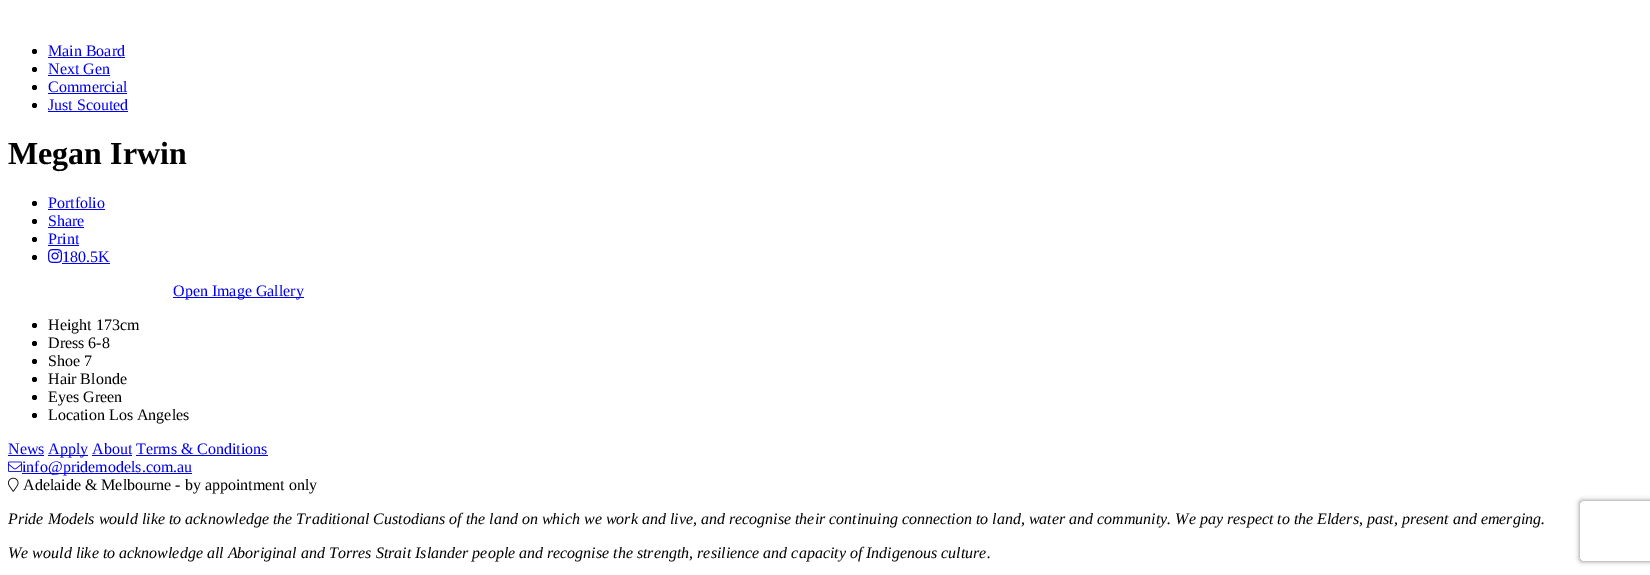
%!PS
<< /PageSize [1650 575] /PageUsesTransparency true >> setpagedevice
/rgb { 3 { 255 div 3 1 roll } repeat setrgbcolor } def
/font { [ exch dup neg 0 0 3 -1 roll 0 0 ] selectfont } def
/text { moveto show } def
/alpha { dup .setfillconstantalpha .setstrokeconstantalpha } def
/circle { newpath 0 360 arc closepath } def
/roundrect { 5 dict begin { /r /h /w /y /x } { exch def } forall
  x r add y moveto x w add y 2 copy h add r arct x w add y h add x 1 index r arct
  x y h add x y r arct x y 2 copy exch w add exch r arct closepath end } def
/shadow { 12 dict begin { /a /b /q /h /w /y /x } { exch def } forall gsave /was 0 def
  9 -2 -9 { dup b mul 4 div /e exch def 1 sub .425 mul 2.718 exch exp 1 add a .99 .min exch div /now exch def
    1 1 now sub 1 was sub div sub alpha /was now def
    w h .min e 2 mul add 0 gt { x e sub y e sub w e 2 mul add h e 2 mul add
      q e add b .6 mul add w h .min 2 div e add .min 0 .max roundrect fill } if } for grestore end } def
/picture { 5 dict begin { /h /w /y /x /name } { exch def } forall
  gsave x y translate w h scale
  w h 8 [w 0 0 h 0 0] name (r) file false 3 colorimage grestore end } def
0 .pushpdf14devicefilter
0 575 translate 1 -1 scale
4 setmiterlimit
255 255 255 rgb
0 0 1650 575 rectfill
0 0 0 rgb
34.5 51.5 2.5 circle fill
0 0 238 rgb
48 57 77 1 rectfill
0 0 0 rgb
34.5 69.5 2.5 circle fill
0 0 238 rgb
48 75 62 1 rectfill
0 0 0 rgb
34.5 87.5 2.5 circle fill
0 0 238 rgb
48 93 79 1 rectfill
0 0 0 rgb
34.5 105.5 2.5 circle fill
0 0 238 rgb
48 111 80 1 rectfill
0 0 0 rgb
34.5 203.5 2.5 circle fill
0 0 238 rgb
48 209 57 1 rectfill
0 0 0 rgb
34.5 221.5 2.5 circle fill
0 0 238 rgb
48 227 36 1 rectfill
0 0 0 rgb
34.5 239.5 2.5 circle fill
0 0 238 rgb
48 245 31 1 rectfill
0 0 0 rgb
34.5 257.5 2.5 circle fill
(img_01.rgb) 48 249 15 14 picture
0 0 238 rgb
62 263 48 1 rectfill
173 297 131 1 rectfill
0 0 0 rgb
34.5 325.5 2.5 circle fill
34.5 343.5 2.5 circle fill
34.5 361.5 2.5 circle fill
34.5 379.5 2.5 circle fill
34.5 397.5 2.5 circle fill
34.5 415.5 2.5 circle fill
0 0 238 rgb
8 455 36 1 rectfill
48 455 40 1 rectfill
92 455 40 1 rectfill
136 455 132 1 rectfill
(img_02.rgb) 8 461 14 11 picture
22 473 170 1 rectfill
(img_03.rgb) 8 477 11 15 picture
gsave
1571 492 moveto 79 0 rlineto 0 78 rlineto -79 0 rlineto closepath 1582 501 moveto 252 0 rlineto 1 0 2 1 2 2 rcurveto 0 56 rlineto 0 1 -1 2 -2 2 rcurveto -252 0 rlineto -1 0 -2 -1 -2 -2 rcurveto 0 -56 rlineto 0 -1 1 -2 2 -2 rcurveto closepath eoclip newpath
128 128 128 rgb
1580 501 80 60 2 2.5 1 shadow
grestore
/LiberationSerif-Regular 16 font
(Main Board) 48 56 text
(Next Gen) 48 74 text
(Commercial) 48 92 text
(Just Scouted) 48 110 text
/LiberationSerif-Bold 32 font
0 0 0 rgb
(Megan Irwin) 8 164 text
/LiberationSerif-Regular 16 font
0 0 238 rgb
(Portfolio) 48 208 text
(Share) 48 226 text
(Print) 48 244 text
(180.5K) 62 262 text
(Open Image Gallery) 173 296 text
0 0 0 rgb
(Height 173cm) 48 330 text
(Dress 6-8) 48 348 text
(Shoe 7) 48 366 text
(Hair Blonde) 48 384 text
(Eyes Green) 48 402 text
(Location Los Angeles) 48 420 text
0 0 238 rgb
(News) 8 454 text
(Apply About Terms & Conditions) 48 454 text
(info@pridemodels.com.au) 22 472 text
0 0 0 rgb
(Adelaide & Melbourne - by appointment only) 23 490 text
/LiberationSerif-Italic 16 font
(Pride Models would like to acknowledge the Traditional Custodians of the land on which we work and live, and recognise their continuing connection to land, water and community. We pay respect to the Elders, past, present and emerging.) 8 524 text
(We would like to acknowledge all Aboriginal and Torres Strait Islander people and recognise the strength, resilience and capacity of Indigenous culture.) 8 558 text
.poppdf14devicefilter showpage
